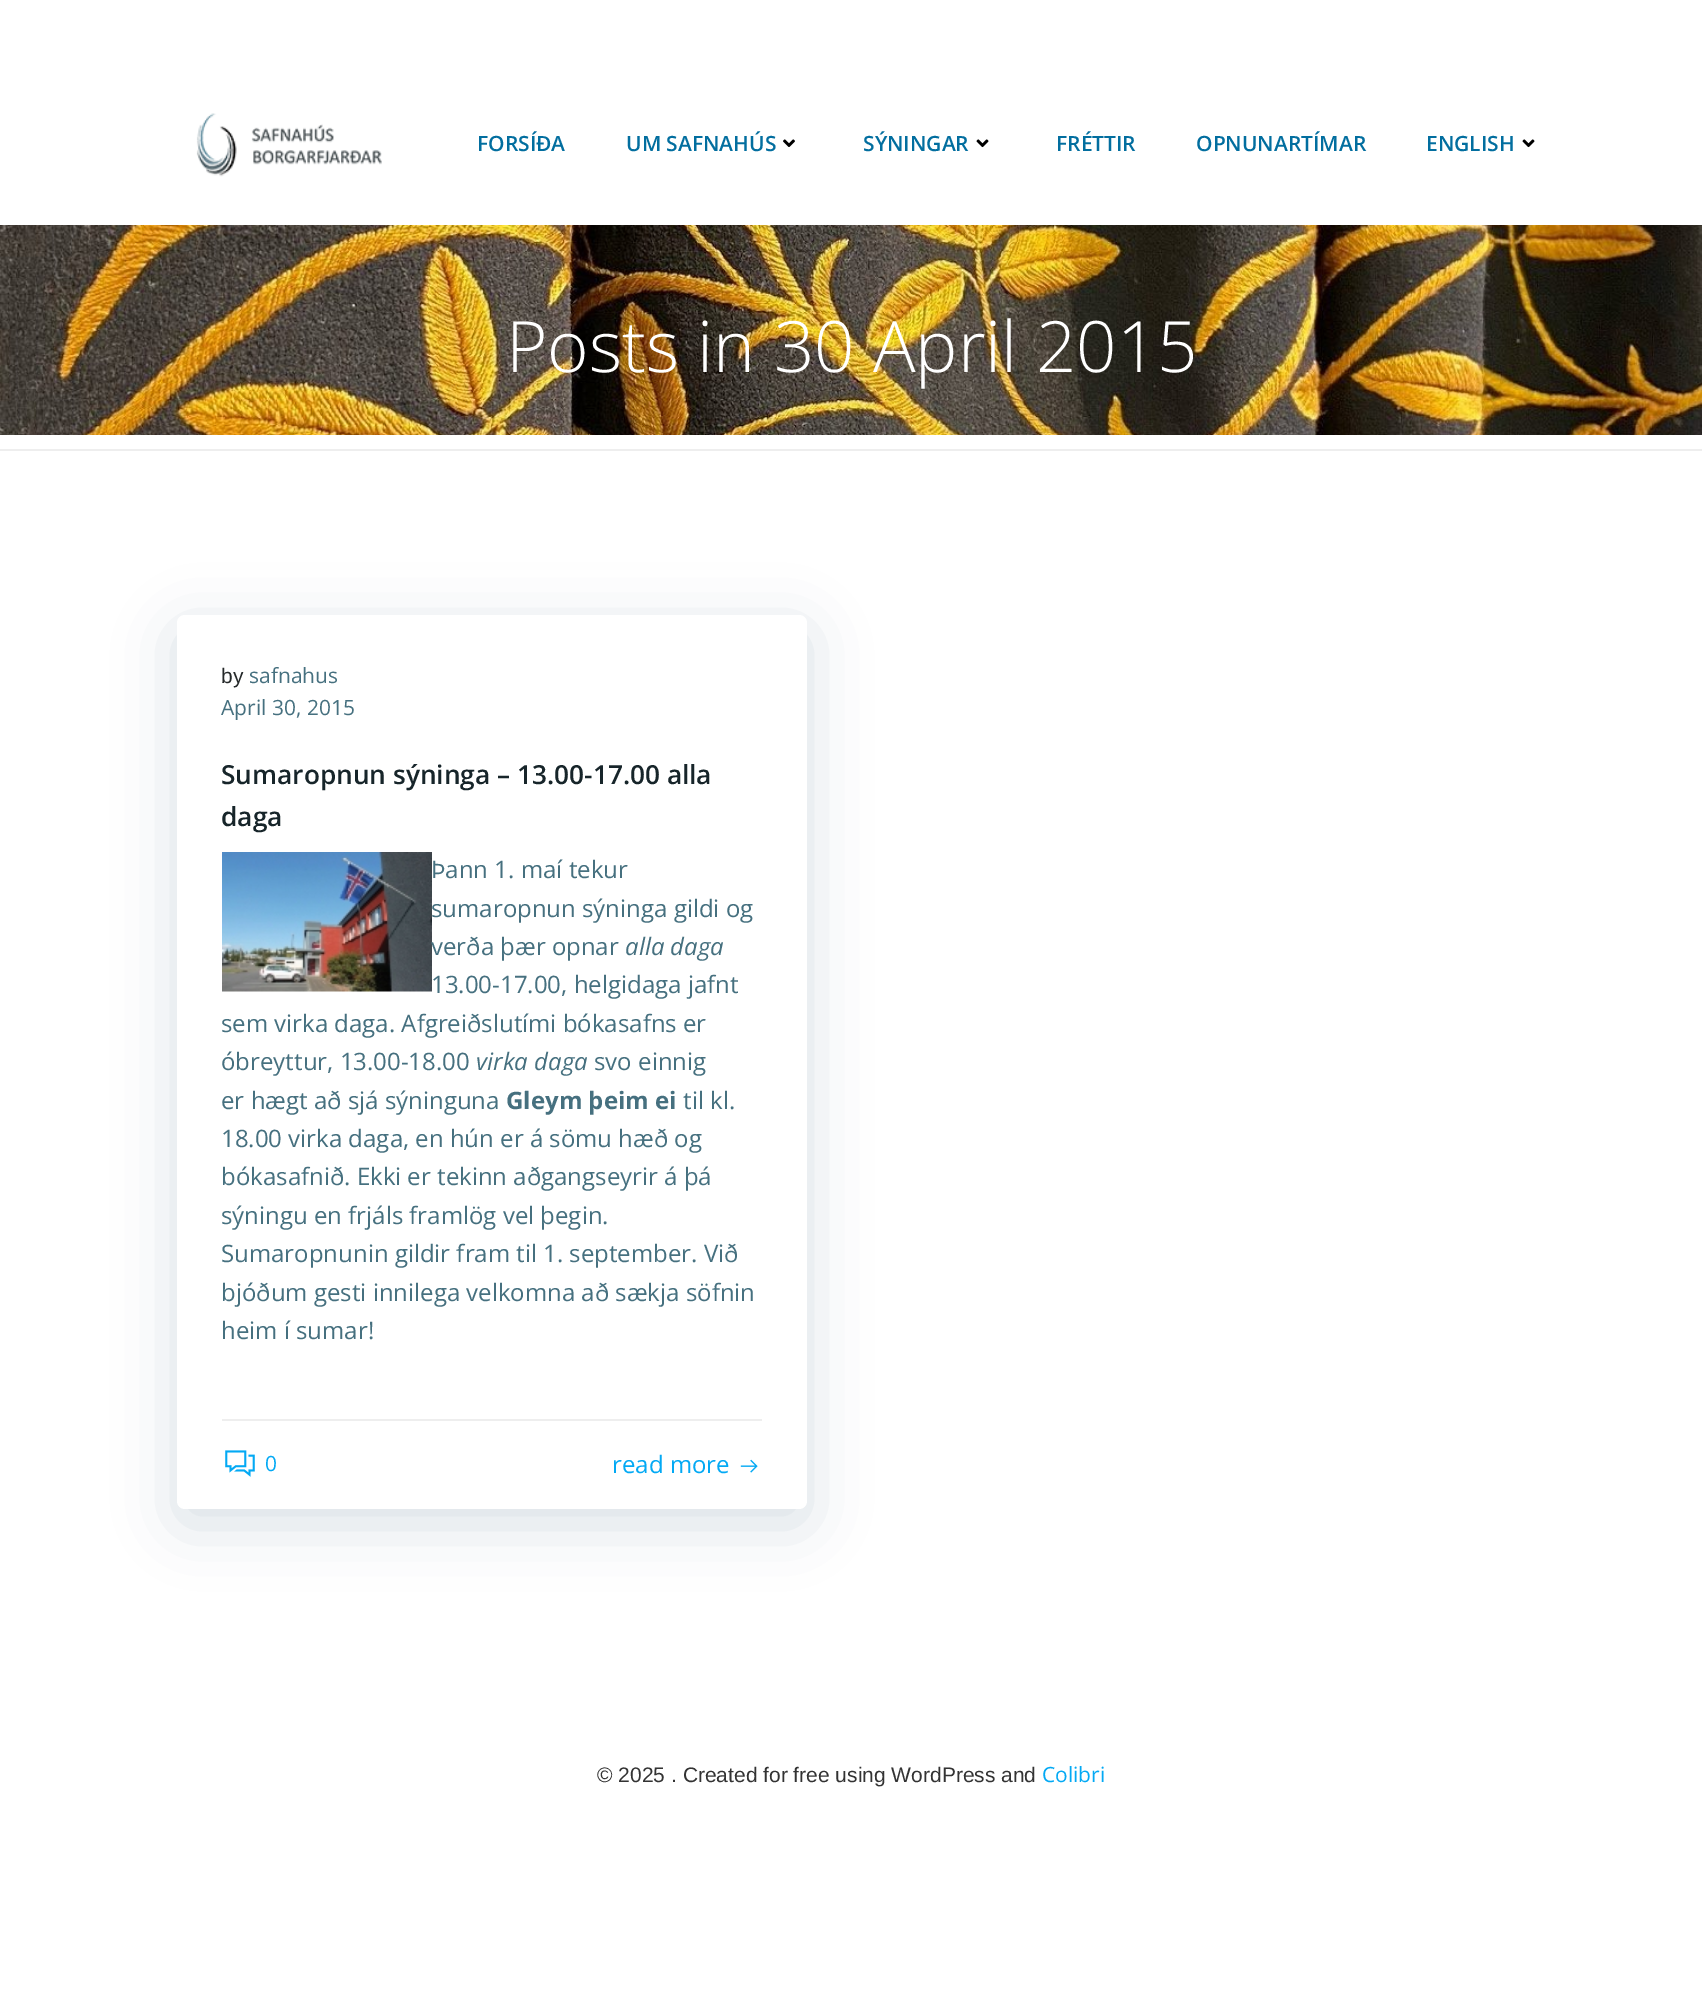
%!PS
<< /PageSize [1702 2003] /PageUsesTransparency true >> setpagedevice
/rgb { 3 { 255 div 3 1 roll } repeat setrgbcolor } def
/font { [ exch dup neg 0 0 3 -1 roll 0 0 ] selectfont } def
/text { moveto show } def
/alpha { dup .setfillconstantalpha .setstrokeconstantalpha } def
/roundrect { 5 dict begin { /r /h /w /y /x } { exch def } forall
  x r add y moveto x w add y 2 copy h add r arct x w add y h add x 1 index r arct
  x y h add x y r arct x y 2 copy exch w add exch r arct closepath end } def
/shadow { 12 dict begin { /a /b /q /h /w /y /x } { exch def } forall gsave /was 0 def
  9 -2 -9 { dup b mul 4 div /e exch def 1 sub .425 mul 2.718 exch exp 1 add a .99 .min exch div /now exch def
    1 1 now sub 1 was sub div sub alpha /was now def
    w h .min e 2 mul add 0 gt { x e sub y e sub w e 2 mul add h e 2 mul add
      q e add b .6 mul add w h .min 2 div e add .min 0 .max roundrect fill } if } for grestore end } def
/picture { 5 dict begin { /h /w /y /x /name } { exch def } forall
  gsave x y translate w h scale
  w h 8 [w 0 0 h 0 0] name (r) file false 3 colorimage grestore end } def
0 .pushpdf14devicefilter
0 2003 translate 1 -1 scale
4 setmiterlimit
255 255 255 rgb
0 0 1702 2003 rectfill
238 238 238 rgb
0 449 1702 2 rectfill
(img_01.rgb) 196 113 186 64 picture
(img_02.rgb) 783 139 12 8 picture
(img_03.rgb) 976 139 13 9 picture
(img_03.rgb) 1522 139 13 9 picture
(img_04.rgb) 0 225 1702 210 picture
1 51 74 rgb
177 630 630 894 8 30 0.15 shadow
255 255 255 rgb
177 615 630 894 8 roundrect fill
238 238 238 rgb
222 1419 540 2 rectfill
(img_05.rgb) 222 852 210 140 picture
(img_06.rgb) 225 1450 30 27 picture
(img_07.rgb) 740 1459 18 14 picture
/OpenSans-SemiBold 21 font
2 110 159 rgb
(FORSÍÐA) 477 151 text
(UM SAFNAHÚS) 626 151 text
(SÝNINGAR) 863 151 text
(FRÉTTIR) 1056 151 text
(OPNUNARTÍMAR) 1196 151 text
(ENGLISH) 1426 151 text
/OpenSans-Light 70.9 font
255 255 255 rgb
(Posts in 30 April 2015) 506 372 text
/LiberationSans-Regular 21 font
37 41 42 rgb
(by) 221 683 text
/OpenSans-Regular 21 font
70 112 127 rgb
(safnahus) 249 683 text
(April 30, 2015) 221 715 text
/OpenSans-SemiBold 26.25 font
23 37 42 rgb
(Sumaropnun sýninga – 13.00-17.00 alla) 221 784 text
(daga) 221 826 text
/OpenSans-Regular 24 font
70 112 127 rgb
(Þann 1. maí tekur) 431 878 text
(sumaropnun sýninga gildi og) 431 917 text
(verða þær opnar) 431 955 text
/OpenSans-Italic 24 font
(alla daga) 625 955 text
/OpenSans-Regular 24 font
(13.00-17.00, helgidaga jafnt) 431 993 text
(sem virka daga. Afgreiðslutími bókasafns er) 221 1032 text
(óbreyttur, 13.00-18.00) 221 1070 text
/OpenSans-Italic 24 font
(virka daga) 476 1070 text
/OpenSans-Regular 24 font
(svo einnig) 594 1070 text
(er hægt að sjá sýninguna) 221 1109 text
/OpenSans-Bold 24 font
(Gleym þeim ei) 506 1109 text
/OpenSans-Regular 24 font
(til kl.) 683 1109 text
(18.00 virka daga, en hún er á sömu hæð og) 221 1147 text
(bókasafnið. Ekki er tekinn aðgangseyrir á þá) 221 1185 text
(sýningu en frjáls framlög vel þegin.) 221 1224 text
(Sumaropnunin gildir fram til 1. september. Við) 221 1262 text
(bjóðum gesti innilega velkomna að sækja söfnin) 221 1301 text
(heim í sumar!) 221 1339 text
/OpenSans-Regular 21 font
3 169 244 rgb
(0) 265 1471 text
/OpenSans-Regular 24 font
(read more) 612 1473 text
/LiberationSans-Regular 21 font
51 51 51 rgb
(© 2025 . Created for free using WordPress and) 597 1782 text
/OpenSans-Regular 21 font
3 169 244 rgb
(Colibri) 1042 1782 text
.poppdf14devicefilter showpage
